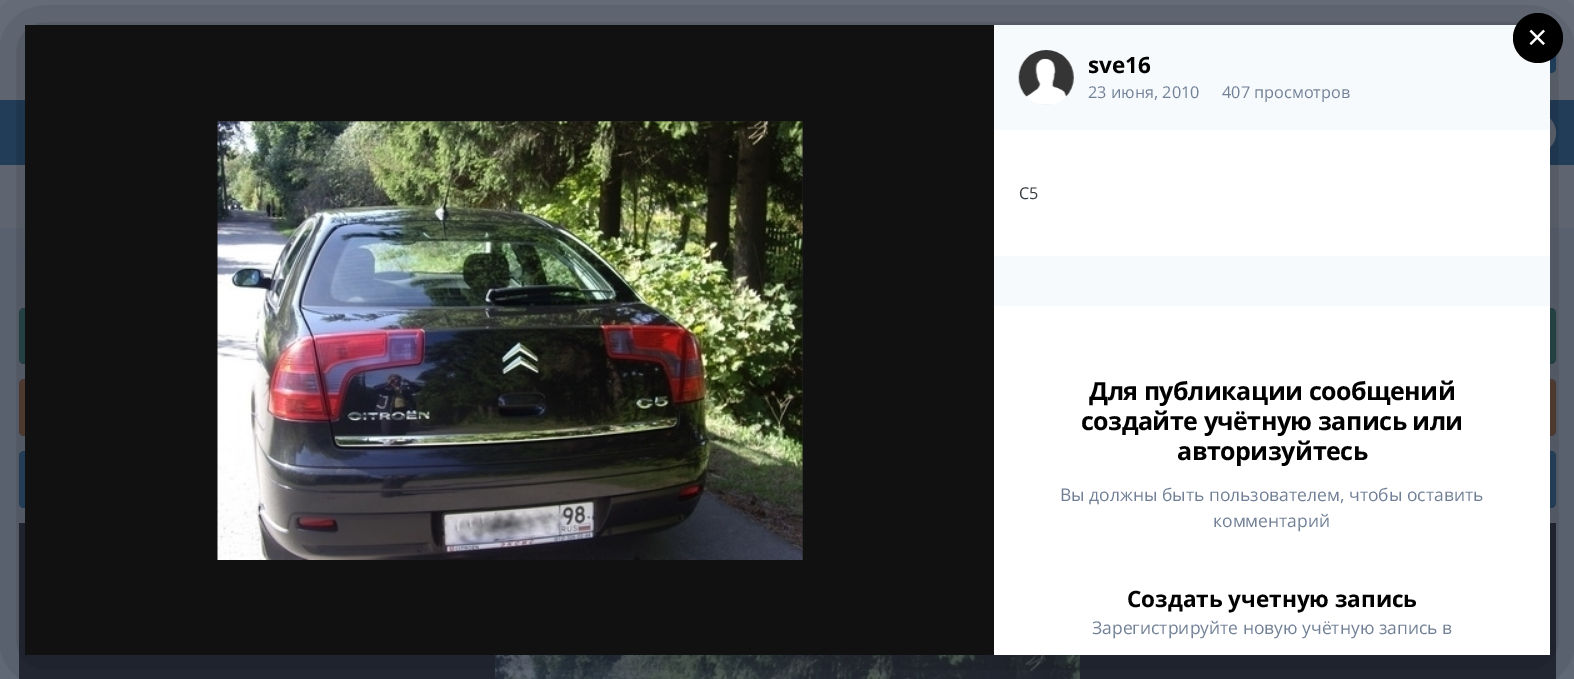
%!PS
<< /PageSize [1574 679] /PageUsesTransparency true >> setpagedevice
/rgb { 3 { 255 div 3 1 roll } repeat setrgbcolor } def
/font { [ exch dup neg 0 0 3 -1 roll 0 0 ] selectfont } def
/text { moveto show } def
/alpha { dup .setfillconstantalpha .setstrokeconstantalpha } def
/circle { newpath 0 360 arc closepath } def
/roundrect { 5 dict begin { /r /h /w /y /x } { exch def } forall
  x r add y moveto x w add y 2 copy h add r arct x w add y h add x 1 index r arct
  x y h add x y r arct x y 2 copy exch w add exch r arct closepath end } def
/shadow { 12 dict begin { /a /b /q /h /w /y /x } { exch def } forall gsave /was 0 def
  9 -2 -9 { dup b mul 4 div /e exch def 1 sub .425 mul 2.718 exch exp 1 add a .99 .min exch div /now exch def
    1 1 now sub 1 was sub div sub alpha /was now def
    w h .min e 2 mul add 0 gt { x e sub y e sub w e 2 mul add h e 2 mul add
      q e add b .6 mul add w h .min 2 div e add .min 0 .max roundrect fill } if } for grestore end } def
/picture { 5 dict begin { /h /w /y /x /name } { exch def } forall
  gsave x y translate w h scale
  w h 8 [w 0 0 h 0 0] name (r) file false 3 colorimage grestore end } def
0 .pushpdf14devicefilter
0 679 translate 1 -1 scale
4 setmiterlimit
103 111 124 rgb
0 0 1574 679 rectfill
108 115 127 rgb
0 0 1574 100 rectfill
38 76 111 rgb
1401 29 155 44 5 roundrect fill
37 69 99 rgb
0 100 1574 65 rectfill
108 115 127 rgb
1231 113 325 40 20 roundrect fill
0 165 1574 63 rectfill
45 81 82 rgb
19 308 1537 56 5 roundrect fill
51 84 86 rgb
24 310 moveto 1527 0 rlineto 2 0 4 2 4 4 rcurveto 0 -1 rlineto 0 -2 -2 -4 -4 -4 rcurveto -1527 0 rlineto -2 0 -4 2 -4 4 rcurveto 0 1 rlineto 0 -2 2 -4 4 -4 rcurveto closepath fill
0.1 alpha
31 39 50 rgb
19.5 308.5 1536 55 4.5 roundrect stroke
1 alpha
98 71 60 rgb
19 379 1537 57 5 roundrect fill
99 75 67 rgb
24 381 moveto 1527 0 rlineto 2 0 4 2 4 4 rcurveto 0 -1 rlineto 0 -2 -2 -4 -4 -4 rcurveto -1527 0 rlineto -2 0 -4 2 -4 4 rcurveto 0 1 rlineto 0 -2 2 -4 4 -4 rcurveto closepath fill
0.1 alpha
31 39 50 rgb
19.5 379.5 1536 56 4.5 roundrect stroke
1 alpha
44 77 108 rgb
19 451 1537 57 5 roundrect fill
50 81 110 rgb
24 454 moveto 1527 0 rlineto 2 0 4 1 4 4 rcurveto 0 -1 rlineto 0 -2 -2 -4 -4 -4 rcurveto -1527 0 rlineto -2 0 -4 2 -4 4 rcurveto 0 1 rlineto 0 -3 2 -4 4 -4 rcurveto closepath fill
0.1 alpha
31 39 50 rgb
19.5 451.5 1536 56 4.5 roundrect stroke
1 alpha
37 44 56 rgb
19 523 1537 156 rectfill
(img_01.rgb) 495 655 585 24 picture
0 0 0 rgb
25 31 1525 630 0 34.5 0.4 shadow
247 250 252 rgb
994 25 556 105 rectfill
0 0 0 rgb
1538 38 25 circle fill
255 255 255 rgb
994 130 556 525 rectfill
1046.5 77.5 27.5 circle fill
(img_03.rgb) 1018 50 56 55 picture
247 250 252 rgb
994 256 556 50 rectfill
/OpenSans-Regular 16.25 font
77 87 104 rgb
(Г) 19 262 text
/LiberationSans-Regular 35 font
255 255 255 rgb
(×) 1527 49 text
17 17 17 rgb
25 25 969 630 rectfill
34 34 34 rgb
218 121 585 439 rectfill
(img_02.rgb) 217 121 586 439 picture
/OpenSans-Bold 22.5 font
0 0 0 rgb
(sve16) 1088 73 text
/OpenSans-Regular 16.25 font
113 128 150 rgb
(23 июня, 2010) 1088 98 text
(407 просмотров) 1222 98 text
53 60 65 rgb
(С5) 1019 199 text
/OpenSans-Bold 25 font
0 0 0 rgb
1089 400 moveto -0.5 0 (Для публикации сообщений) ashow
1081 430 moveto -0.5 0 (создайте учётную запись или) ashow
1177 460 moveto -0.5 0 (авторизуйтесь) ashow
/OpenSans-Regular 17.5 font
113 128 150 rgb
(Вы должны быть пользователем, чтобы оставить) 1060 501 text
(комментарий) 1213 527 text
/OpenSans-Bold 22.5 font
0 0 0 rgb
(Создать учетную запись) 1127 607 text
/OpenSans-Regular 17.5 font
113 128 150 rgb
(Зарегистрируйте новую учётную запись в) 1092 634 text
.poppdf14devicefilter showpage
